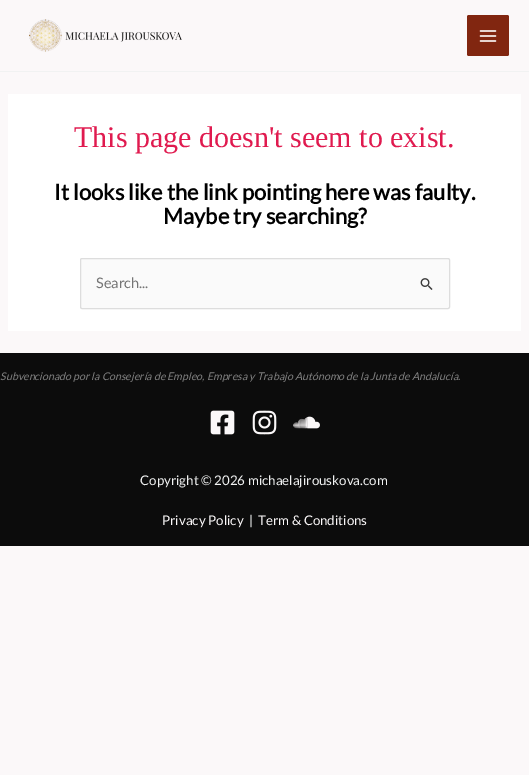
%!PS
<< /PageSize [529 775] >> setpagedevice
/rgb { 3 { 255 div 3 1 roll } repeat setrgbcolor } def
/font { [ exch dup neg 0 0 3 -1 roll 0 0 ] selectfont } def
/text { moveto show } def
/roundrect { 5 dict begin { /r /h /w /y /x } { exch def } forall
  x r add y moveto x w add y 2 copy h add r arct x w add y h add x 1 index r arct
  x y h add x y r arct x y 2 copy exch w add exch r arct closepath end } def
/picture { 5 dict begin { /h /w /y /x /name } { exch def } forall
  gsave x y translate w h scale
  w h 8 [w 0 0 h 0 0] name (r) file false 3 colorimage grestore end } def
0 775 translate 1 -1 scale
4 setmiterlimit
251 248 249 rgb
0 0 529 775 rectfill
241 242 242 rgb
0 71 529 1 rectfill
(img_01.rgb) 29 19 153 33 picture
129 38 16 rgb
467 15 42 41 2 roundrect fill
(img_02.rgb) 479 30 18 12 picture
255 255 255 rgb
8 94 513 237 rectfill
250 250 250 rgb
80.5 258.5 369 50 1.5 roundrect gsave fill grestore
221 221 221 rgb
stroke
(img_03.rgb) 420 278 13 12 picture
12 12 12 rgb
0 353 529 193 rectfill
(img_04.rgb) 210 410 25 25 picture
(img_05.rgb) 252 410 25 25 picture
(img_06.rgb) 293 416 27 13 picture
/LiberationSerif-Regular 30 font
224 26 79 rgb
(This page doesn't seem to exist.) 74 147 text
/Lato-Bold 21.9 font
0 0 0 rgb
(It looks like the link pointing here was faulty.) 54 200 text
(Maybe try searching?) 163 224 text
/Lato-Regular 14.5 font
117 117 117 rgb
(Search...) 96 288 text
/Lato-Italic 10.65 font
128 128 128 rgb
(Subvencionado por la Consejería de Empleo, Empresa y Trabajo Autónomo de la Junta de Andalucía.) 0 380 text
/Lato-Regular 13.3 font
241 242 242 rgb
(Copyright © 2026 michaelajirouskova.com) 140 485 text
251 248 249 rgb
(Privacy Policy) 162 525 text
241 242 242 rgb
(|) 249 525 text
251 248 249 rgb
(Term & Conditions) 258 525 text
showpage
